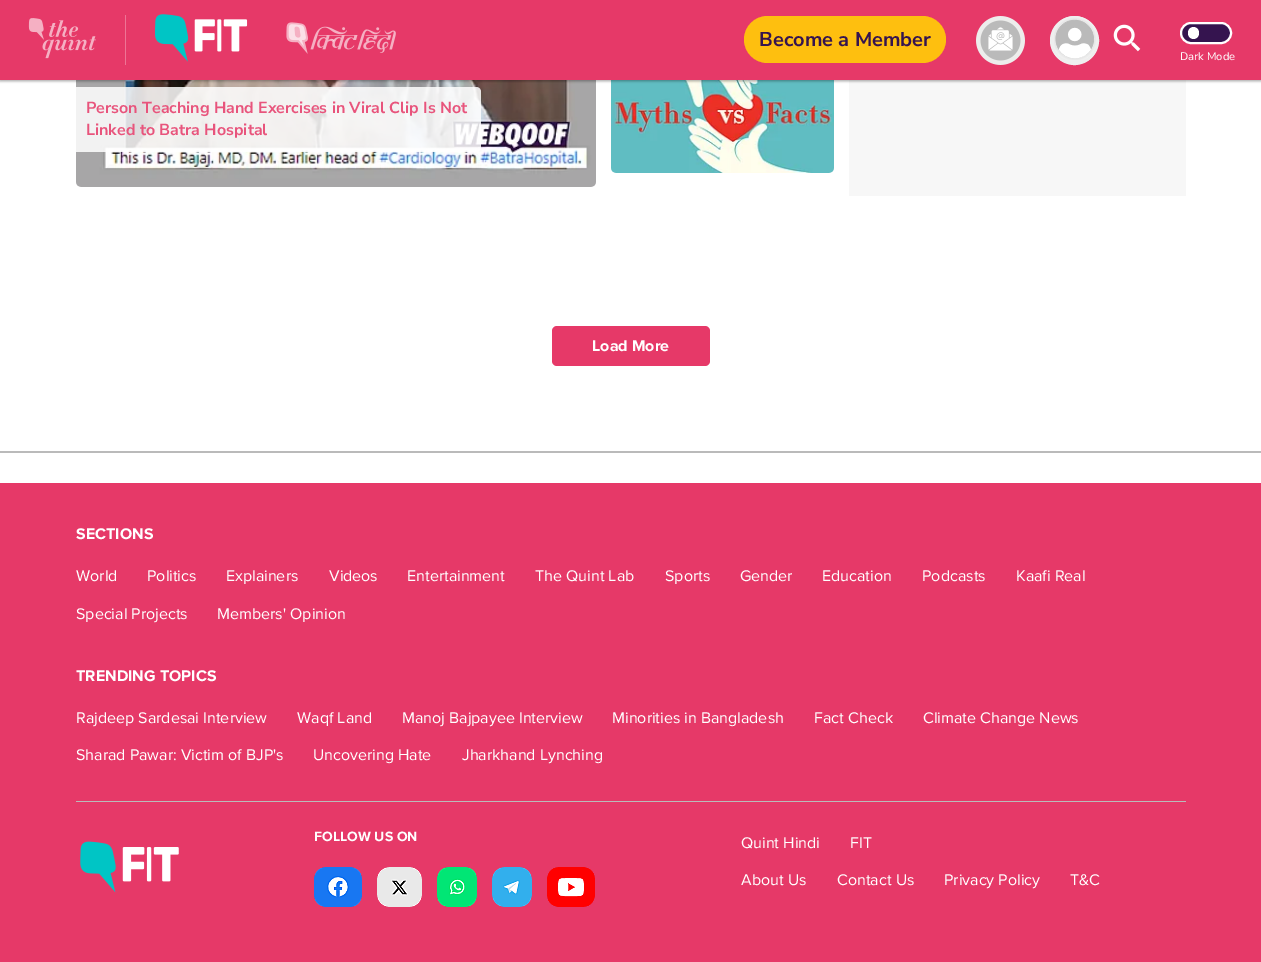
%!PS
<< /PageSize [1261 962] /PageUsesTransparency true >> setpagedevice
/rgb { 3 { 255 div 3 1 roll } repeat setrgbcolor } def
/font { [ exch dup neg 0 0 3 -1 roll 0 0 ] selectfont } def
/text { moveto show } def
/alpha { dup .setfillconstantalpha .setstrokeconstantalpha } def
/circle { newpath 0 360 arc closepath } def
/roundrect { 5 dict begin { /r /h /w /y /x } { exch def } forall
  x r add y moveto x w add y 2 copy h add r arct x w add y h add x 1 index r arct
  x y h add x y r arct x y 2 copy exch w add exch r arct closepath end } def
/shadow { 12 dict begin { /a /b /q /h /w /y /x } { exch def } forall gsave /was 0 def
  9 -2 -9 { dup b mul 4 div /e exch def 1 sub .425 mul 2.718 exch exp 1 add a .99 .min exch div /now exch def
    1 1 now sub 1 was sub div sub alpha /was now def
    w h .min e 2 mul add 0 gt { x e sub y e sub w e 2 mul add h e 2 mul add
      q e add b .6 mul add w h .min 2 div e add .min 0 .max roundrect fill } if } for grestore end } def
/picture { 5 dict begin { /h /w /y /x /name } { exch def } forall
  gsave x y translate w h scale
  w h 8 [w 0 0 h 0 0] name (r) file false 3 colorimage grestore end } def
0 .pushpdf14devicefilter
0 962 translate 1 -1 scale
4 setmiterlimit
255 255 255 rgb
0 0 1261 962 rectfill
(img_07.rgb) 76 80 520 107 picture
(img_08.rgb) 611 80 223 93 picture
247 247 247 rgb
849 80 337 116 rectfill
0 0 0 rgb
0 1 1261 80 0 1 0.15 shadow
-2 43 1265 39 0 1 0.15 shadow
230 57 104 rgb
0 0 1261 80 rectfill
(img_01.rgb) 28 18 68 41 picture
238 116 149 rgb
125 15 1 50 rectfill
(img_02.rgb) 155 14 93 48 picture
(img_03.rgb) 286 22 110 32 picture
254 191 15 rgb
744 16 202 47 23.5 roundrect fill
(img_04.rgb) 976 16 49 49 picture
239 239 239 rgb
1074.5 40.5 24 circle gsave fill grestore
stroke
(img_05.rgb) 1054 16 42 44 picture
(img_06.rgb) 1113 24 28 28 picture
53 20 79 rgb
1181 23 50 20 10 roundrect gsave fill grestore
255 255 255 rgb
2 setlinewidth
stroke
1188 27 11 12 5.5 roundrect fill
0.85 alpha
76 87 moveto 400 0 rlineto 3 0 5 2 5 5 rcurveto 0 55 rlineto 0 3 -2 5 -5 5 rcurveto -400 0 rlineto closepath fill
1 alpha
230 57 104 rgb
552 326 158 40 5 roundrect fill
186 186 186 rgb
0 451 1261 2 rectfill
230 57 104 rgb
0 483 1261 479 rectfill
186 186 186 rgb
76 801 1110 1 rectfill
(img_09.rgb) 80 841 99 52 picture
(img_10.rgb) 314 867 48 40 picture
(img_11.rgb) 377 867 45 40 picture
(img_12.rgb) 437 867 40 40 picture
(img_13.rgb) 492 867 40 40 picture
(img_14.rgb) 547 867 48 40 picture
/NunitoSans-Bold 20 font
53 20 79 rgb
(Become a Member) 759 46 text
/NunitoSans-Regular 11 font
255 255 255 rgb
(Dark Mode) 1180 60 text
/NunitoSans-Bold 16 font
232 84 124 rgb
(Person Teaching Hand Exercises in Viral Clip Is Not) 86 113 text
(Linked to Batra Hospital) 86 135 text
/ProximaNova-Bold 16 font
255 255 255 rgb
(Load More) 592 351 text
(SECTIONS) 76 539 text
/ProximaNova-Regular 16 font
(World) 76 581 text
(Politics) 147 581 text
(Explainers) 226 581 text
(Videos) 329 581 text
(Entertainment) 407 581 text
(The Quint Lab) 535 581 text
(Sports) 665 581 text
(Gender) 740 581 text
(Education) 822 581 text
(Podcasts) 922 581 text
(Kaafi Real) 1016 581 text
(Special Projects) 76 619 text
(Members' Opinion) 217 619 text
/ProximaNova-Bold 16 font
(TRENDING TOPICS) 76 681 text
/ProximaNova-Regular 16 font
(Rajdeep Sardesai Interview) 76 723 text
(Waqf Land) 297 723 text
(Manoj Bajpayee Interview) 402 723 text
(Minorities in Bangladesh) 612 723 text
(Fact Check) 814 723 text
(Climate Change News) 923 723 text
(Sharad Pawar: Victim of BJP's) 76 760 text
(Uncovering Hate) 313 760 text
(Jharkhand Lynching) 462 760 text
/ProximaNova-Bold 14 font
(FOLLOW US ON) 314 841 text
/ProximaNova-Regular 16 font
(Quint Hindi) 741 848 text
(FIT) 850 848 text
(About Us) 741 885 text
(Contact Us) 837 885 text
(Privacy Policy) 944 885 text
(T&C) 1070 885 text
.poppdf14devicefilter showpage
